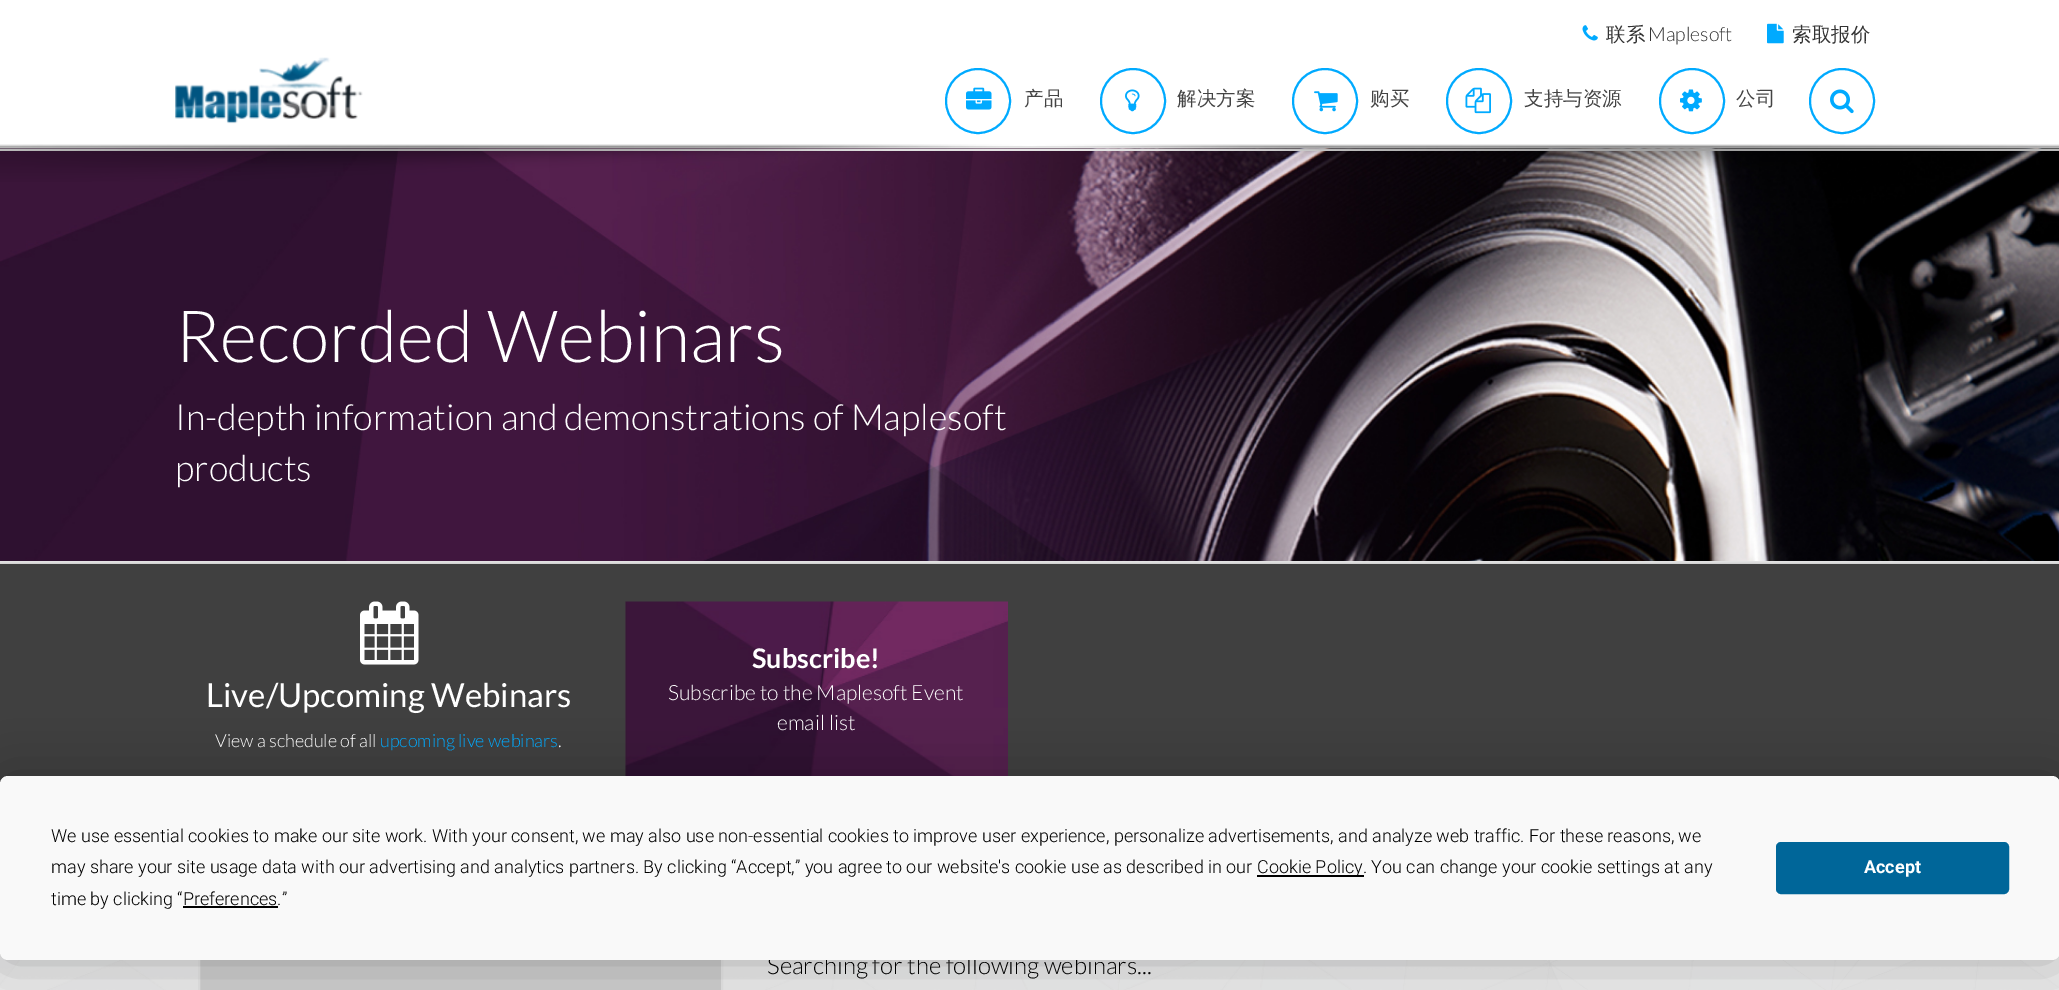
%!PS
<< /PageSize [2059 990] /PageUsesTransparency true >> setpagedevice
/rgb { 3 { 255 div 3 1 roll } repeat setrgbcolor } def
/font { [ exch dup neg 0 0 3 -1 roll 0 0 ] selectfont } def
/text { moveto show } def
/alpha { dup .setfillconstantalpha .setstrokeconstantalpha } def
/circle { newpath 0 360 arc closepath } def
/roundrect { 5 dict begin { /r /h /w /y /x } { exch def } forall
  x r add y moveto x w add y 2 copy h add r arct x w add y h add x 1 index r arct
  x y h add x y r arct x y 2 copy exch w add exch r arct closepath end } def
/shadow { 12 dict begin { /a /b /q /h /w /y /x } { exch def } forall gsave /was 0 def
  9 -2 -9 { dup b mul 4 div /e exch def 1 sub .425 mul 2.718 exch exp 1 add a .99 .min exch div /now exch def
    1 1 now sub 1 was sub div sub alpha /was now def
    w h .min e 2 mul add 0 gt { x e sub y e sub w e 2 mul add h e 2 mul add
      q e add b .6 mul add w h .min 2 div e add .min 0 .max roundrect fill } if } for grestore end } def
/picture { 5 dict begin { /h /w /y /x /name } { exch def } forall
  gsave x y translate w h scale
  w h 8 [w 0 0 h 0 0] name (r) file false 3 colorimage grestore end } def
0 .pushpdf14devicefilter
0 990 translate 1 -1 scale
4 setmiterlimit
255 255 255 rgb
0 0 2059 990 rectfill
229 229 229 rgb
0 146 2059 3 rectfill
(img_01.rgb) 1582 25 16 16 picture
(img_02.rgb) 1767 23 17 21 picture
(img_03.rgb) 175 57 188 67 picture
0 170 255 rgb
2 setlinewidth
978 101 32 circle stroke
(img_04.rgb) 966 87 26 23 picture
1133 101 32 circle stroke
(img_05.rgb) 1125 89 15 23 picture
1325 101 32 circle stroke
(img_06.rgb) 1314 91 24 21 picture
1479 101 32 circle stroke
(img_07.rgb) 1465 87 26 27 picture
1692 101 32 circle stroke
(img_08.rgb) 1680 89 22 23 picture
1842 101 32 circle stroke
(img_09.rgb) 1830 89 24 25 picture
(img_11.rgb) 0 148 2059 413 picture
229 229 229 rgb
0 149 2059 2 rectfill
(img_10.rgb) 0 144 2059 38 picture
0 561 2059 3 rectfill
0 0 0 rgb
0 566 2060 255 0 2 0.7 shadow
64 64 64 rgb
0 564 2059 220 rectfill
(img_12.rgb) 360 601 59 64 picture
(img_13.rgb) 625 601 383 175 picture
241 241 241 rgb
0 952 2059 38 rectfill
(img_14.rgb) 0 952 2059 38 picture
204 204 204 rgb
200 960 521 30 rectfill
225 225 225 rgb
199 949 523 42 rectstroke
0 0 0 rgb
0 776 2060 184 8 26 0.25 shadow
/WenQuanYiZenHei-Medium 19.5 font
51 51 51 rgb
(联系) 1606 41 text
/Lato-Light 19.5 font
(Maplesoft) 1648 41 text
/WenQuanYiZenHei-Medium 19.5 font
(索取报价) 1792 41 text
68 68 68 rgb
(产品) 1024 105 text
(解决方案) 1177 105 text
(购买) 1370 105 text
(支持与资源) 1524 105 text
(公司) 1736 105 text
/Lato-Light 72 font
255 255 255 rgb
(Recorded Webinars) 175 362 text
/Lato-Light 36 font
(In-depth information and demonstrations of Maplesoft) 175 430 text
(products) 175 481 text
/Lato-Regular 33 font
(Live/Upcoming Webinars) 206 707 text
/Lato-Light 18 font
(View a schedule of all) 215 747 text
0 170 255 rgb
(upcoming live webinars) 380 747 text
255 255 255 rgb
(.) 558 747 text
/Lato-Bold 27 font
(Subscribe!) 752 668 text
/Lato-Light 21 font
(Subscribe to the Maplesoft Event) 668 700 text
(email list) 777 730 text
/Lato-Light 24 font
0 0 0 rgb
(Searching for the following webinars...) 767 974 text
249 249 249 rgb
0 776 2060 184 8 roundrect fill
0 102 153 rgb
1777 843 231 50 4 roundrect gsave fill grestore
stroke
/Roboto-Bold 18 font
255 255 255 rgb
(Accept) 1864 873 text
0 0 0 rgb
183 906 95 2 rectfill
/Roboto-Light 18 font
(time by clicking “Preferences.”) 51 905 text
1257 875 107 2 rectfill
(Cookie Policy. You can change your cookie settings at any) 1257 873 text
(may share your site usage data with our advertising and analytics partners. By clicking “Accept,” you agree to our website's cookie use as described in our) 51 873 text
(We use essential cookies to make our site work. With your consent, we may also use non-essential cookies to improve user experience, personalize advertisements, and analyze web traffic. For these reasons, we) 51 842 text
.poppdf14devicefilter showpage
